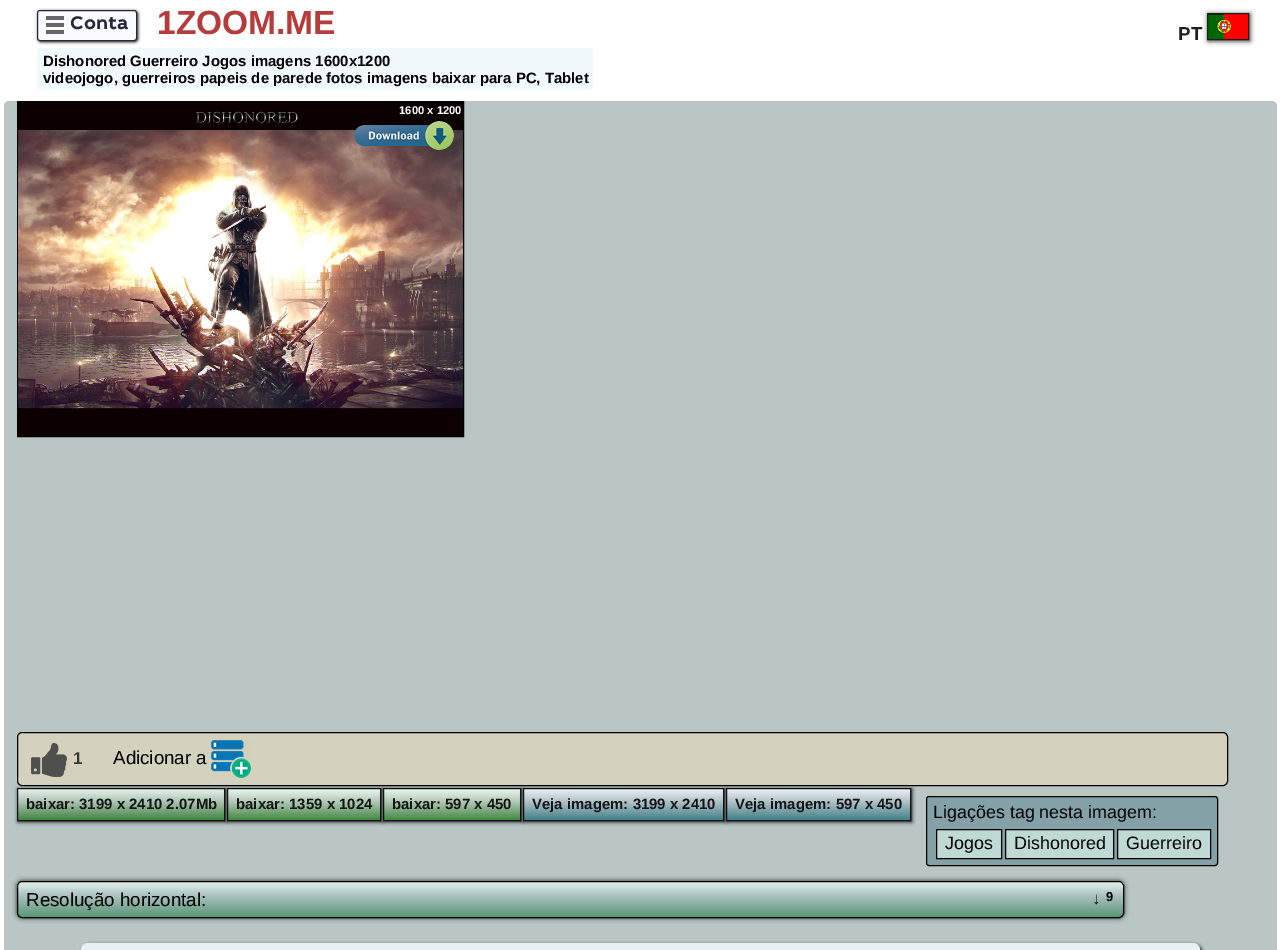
%!PS
<< /PageSize [1281 950] /PageUsesTransparency true >> setpagedevice
/rgb { 3 { 255 div 3 1 roll } repeat setrgbcolor } def
/font { [ exch dup neg 0 0 3 -1 roll 0 0 ] selectfont } def
/text { moveto show } def
/alpha { dup .setfillconstantalpha .setstrokeconstantalpha } def
/roundrect { 5 dict begin { /r /h /w /y /x } { exch def } forall
  x r add y moveto x w add y 2 copy h add r arct x w add y h add x 1 index r arct
  x y h add x y r arct x y 2 copy exch w add exch r arct closepath end } def
/shadow { 12 dict begin { /a /b /q /h /w /y /x } { exch def } forall gsave /was 0 def
  9 -2 -9 { dup b mul 4 div /e exch def 1 sub .425 mul 2.718 exch exp 1 add a .99 .min exch div /now exch def
    1 1 now sub 1 was sub div sub alpha /was now def
    w h .min e 2 mul add 0 gt { x e sub y e sub w e 2 mul add h e 2 mul add
      q e add b .6 mul add w h .min 2 div e add .min 0 .max roundrect fill } if } for grestore end } def
/picture { 5 dict begin { /h /w /y /x /name } { exch def } forall
  gsave x y translate w h scale
  w h 8 [w 0 0 h 0 0] name (r) file false 3 colorimage grestore end } def
0 .pushpdf14devicefilter
0 950 translate 1 -1 scale
4 setmiterlimit
255 255 255 rgb
0 0 1281 950 rectfill
gsave
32 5 moveto 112 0 rlineto 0 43 rlineto -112 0 rlineto closepath 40 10 moveto 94 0 rlineto 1.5 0 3 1.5 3 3 rcurveto 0 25 rlineto 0 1.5 -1.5 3 -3 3 rcurveto -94 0 rlineto -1.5 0 -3 -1.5 -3 -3 rcurveto 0 -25 rlineto 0 -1.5 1.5 -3 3 -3 rcurveto closepath eoclip newpath
0 0 0 rgb
38 11 100 31 3 1.5 0.9 shadow
grestore
0.41 alpha
240 248 253 rgb
37.5 10.5 99 30 2.5 roundrect fill
1 alpha
40 40 59 rgb
37.5 10.5 99 30 2.5 roundrect stroke
(img_01.rgb) 46 16 18 18 picture
242 249 253 rgb
37 48 556 42 3 roundrect fill
0 0 0 rgb
1208 14 42 27 0 2.5 0.8 shadow
(img_02.rgb) 1208 14 40 25 picture
30 30 30 rgb
1207.5 13.5 41 26 rectstroke
185 198 195 rgb
4 101 1273 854 5 roundrect fill
0 0 0 rgb
17.5 101.5 446 335 rectstroke
(img_03.rgb) 18 102 445 334 picture
0.5 alpha
396 102 67 17 rectfill
1 alpha
(img_04.rgb) 354 121 100 29 picture
212 209 188 rgb
17.5 732.5 1210 53 4.5 roundrect gsave fill grestore
0 0 0 rgb
stroke
(img_05.rgb) 31 743 36 34 picture
(img_06.rgb) 211 740 40 38 picture
18 789 208 33 0 2 0.9 shadow
gsave 18 789 moveto 206 0 rlineto 0 31 rlineto -206 0 rlineto closepath clip newpath
<< /ShadingType 2 /ColorSpace /DeviceRGB /Coords [121 820 121 789] /Extend [true true] /Function << /FunctionType 3 /Domain [0 1] /Functions [<< /FunctionType 2 /Domain [0 1] /C0 [0.251 0.514 0.247] /C1 [0.682 0.769 0.706] /N 1 >> << /FunctionType 2 /Domain [0 1] /C0 [0.682 0.769 0.706] /C1 [0.898 0.949 0.925] /N 1 >>] /Bounds [0.6] /Encode [0 1 0 1] >> >> shfill grestore
19 20 20 rgb
17.5 788.5 207 32 rectstroke
gsave
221 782 moveto 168 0 rlineto 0 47 rlineto -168 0 rlineto closepath 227 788 moveto 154 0 rlineto 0 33 rlineto -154 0 rlineto closepath eoclip newpath
0 0 0 rgb
228 789 154 33 0 2 0.9 shadow
grestore
0.9 alpha
234 247 240 rgb
227 789 154 32 rectfill
1 alpha
gsave 227 788 moveto 154 0 rlineto 0 1 rlineto -154 0 rlineto closepath clip newpath
<< /ShadingType 2 /ColorSpace /DeviceRGB /Coords [304 789 304 758] /Extend [true true] /Function << /FunctionType 3 /Domain [0 1] /Functions [<< /FunctionType 2 /Domain [0 1] /C0 [0.267 0.533 0.263] /C1 [0.702 0.788 0.722] /N 1 >> << /FunctionType 2 /Domain [0 1] /C0 [0.702 0.788 0.722] /C1 [0.918 0.969 0.941] /N 1 >>] /Bounds [0.6] /Encode [0 1 0 1] >> >> shfill grestore
0.9 alpha
gsave 227 789 moveto 154 0 rlineto 0 31 rlineto -154 0 rlineto closepath clip newpath
<< /ShadingType 2 /ColorSpace /DeviceRGB /Coords [304 820 304 789] /Extend [true true] /Function << /FunctionType 3 /Domain [0 1] /Functions [<< /FunctionType 2 /Domain [0 1] /C0 [0.196 0.486 0.188] /C1 [0.678 0.769 0.698] /N 1 >> << /FunctionType 2 /Domain [0 1] /C0 [0.678 0.769 0.698] /C1 [0.918 0.969 0.941] /N 1 >>] /Bounds [0.6] /Encode [0 1 0 1] >> >> shfill grestore
gsave 227 820 moveto 2 0 rlineto 0 1 rlineto -2 0 rlineto closepath clip newpath
<< /ShadingType 2 /ColorSpace /DeviceRGB /Coords [304 851 304 820] /Extend [true true] /Function << /FunctionType 3 /Domain [0 1] /Functions [<< /FunctionType 2 /Domain [0 1] /C0 [0.196 0.486 0.188] /C1 [0.678 0.769 0.698] /N 1 >> << /FunctionType 2 /Domain [0 1] /C0 [0.678 0.769 0.698] /C1 [0.918 0.969 0.941] /N 1 >>] /Bounds [0.6] /Encode [0 1 0 1] >> >> shfill grestore
0 0 0 rgb
227.5 788.5 153 32 rectstroke
gsave
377 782 moveto 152 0 rlineto 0 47 rlineto -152 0 rlineto closepath 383 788 moveto 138 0 rlineto 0 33 rlineto -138 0 rlineto closepath eoclip newpath
1 alpha
384 789 138 33 0 2 0.9 shadow
grestore
234 247 240 rgb
383 789 138 32 rectfill
1 alpha
gsave 383 788 moveto 138 0 rlineto 0 1 rlineto -138 0 rlineto closepath clip newpath
<< /ShadingType 2 /ColorSpace /DeviceRGB /Coords [452 789 452 758] /Extend [true true] /Function << /FunctionType 3 /Domain [0 1] /Functions [<< /FunctionType 2 /Domain [0 1] /C0 [0.267 0.533 0.263] /C1 [0.702 0.788 0.722] /N 1 >> << /FunctionType 2 /Domain [0 1] /C0 [0.702 0.788 0.722] /C1 [0.918 0.969 0.941] /N 1 >>] /Bounds [0.6] /Encode [0 1 0 1] >> >> shfill grestore
0.9 alpha
gsave 383 789 moveto 138 0 rlineto 0 31 rlineto -138 0 rlineto closepath clip newpath
<< /ShadingType 2 /ColorSpace /DeviceRGB /Coords [452 820 452 789] /Extend [true true] /Function << /FunctionType 3 /Domain [0 1] /Functions [<< /FunctionType 2 /Domain [0 1] /C0 [0.196 0.486 0.188] /C1 [0.678 0.769 0.698] /N 1 >> << /FunctionType 2 /Domain [0 1] /C0 [0.678 0.769 0.698] /C1 [0.918 0.969 0.941] /N 1 >>] /Bounds [0.6] /Encode [0 1 0 1] >> >> shfill grestore
gsave 383 820 moveto 2 0 rlineto 0 1 rlineto -2 0 rlineto closepath clip newpath
<< /ShadingType 2 /ColorSpace /DeviceRGB /Coords [452 851 452 820] /Extend [true true] /Function << /FunctionType 3 /Domain [0 1] /Functions [<< /FunctionType 2 /Domain [0 1] /C0 [0.196 0.486 0.188] /C1 [0.678 0.769 0.698] /N 1 >> << /FunctionType 2 /Domain [0 1] /C0 [0.678 0.769 0.698] /C1 [0.918 0.969 0.941] /N 1 >>] /Bounds [0.6] /Encode [0 1 0 1] >> >> shfill grestore
0 0 0 rgb
383.5 788.5 137 32 rectstroke
gsave
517 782 moveto 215 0 rlineto 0 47 rlineto -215 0 rlineto closepath 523 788 moveto 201 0 rlineto 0 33 rlineto -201 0 rlineto closepath eoclip newpath
1 alpha
524 789 201 33 0 2 0.9 shadow
grestore
234 242 247 rgb
523 789 201 32 rectfill
1 alpha
gsave 523 788 moveto 201 0 rlineto 0 1 rlineto -201 0 rlineto closepath clip newpath
<< /ShadingType 2 /ColorSpace /DeviceRGB /Coords [624 789 624 758] /Extend [true true] /Function << /FunctionType 3 /Domain [0 1] /Functions [<< /FunctionType 2 /Domain [0 1] /C0 [0.259 0.502 0.533] /C1 [0.702 0.761 0.788] /N 1 >> << /FunctionType 2 /Domain [0 1] /C0 [0.702 0.761 0.788] /C1 [0.918 0.949 0.965] /N 1 >>] /Bounds [0.6] /Encode [0 1 0 1] >> >> shfill grestore
0.9 alpha
gsave 523 789 moveto 201 0 rlineto 0 31 rlineto -201 0 rlineto closepath clip newpath
<< /ShadingType 2 /ColorSpace /DeviceRGB /Coords [624 820 624 789] /Extend [true true] /Function << /FunctionType 3 /Domain [0 1] /Functions [<< /FunctionType 2 /Domain [0 1] /C0 [0.188 0.455 0.486] /C1 [0.678 0.741 0.769] /N 1 >> << /FunctionType 2 /Domain [0 1] /C0 [0.678 0.741 0.769] /C1 [0.918 0.949 0.969] /N 1 >>] /Bounds [0.6] /Encode [0 1 0 1] >> >> shfill grestore
gsave 523 820 moveto 2 0 rlineto 0 1 rlineto -2 0 rlineto closepath clip newpath
<< /ShadingType 2 /ColorSpace /DeviceRGB /Coords [624 851 624 820] /Extend [true true] /Function << /FunctionType 3 /Domain [0 1] /Functions [<< /FunctionType 2 /Domain [0 1] /C0 [0.188 0.455 0.486] /C1 [0.678 0.741 0.769] /N 1 >> << /FunctionType 2 /Domain [0 1] /C0 [0.678 0.741 0.769] /C1 [0.918 0.949 0.969] /N 1 >>] /Bounds [0.6] /Encode [0 1 0 1] >> >> shfill grestore
0 0 0 rgb
523.5 788.5 200 32 rectstroke
gsave
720 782 moveto 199 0 rlineto 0 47 rlineto -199 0 rlineto closepath 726 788 moveto 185 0 rlineto 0 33 rlineto -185 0 rlineto closepath eoclip newpath
1 alpha
727 789 185 33 0 2 0.9 shadow
grestore
234 242 247 rgb
726 789 185 32 rectfill
1 alpha
gsave 726 788 moveto 185 0 rlineto 0 1 rlineto -185 0 rlineto closepath clip newpath
<< /ShadingType 2 /ColorSpace /DeviceRGB /Coords [819 789 819 758] /Extend [true true] /Function << /FunctionType 3 /Domain [0 1] /Functions [<< /FunctionType 2 /Domain [0 1] /C0 [0.259 0.502 0.533] /C1 [0.702 0.761 0.788] /N 1 >> << /FunctionType 2 /Domain [0 1] /C0 [0.702 0.761 0.788] /C1 [0.918 0.949 0.965] /N 1 >>] /Bounds [0.6] /Encode [0 1 0 1] >> >> shfill grestore
0.9 alpha
gsave 726 789 moveto 185 0 rlineto 0 31 rlineto -185 0 rlineto closepath clip newpath
<< /ShadingType 2 /ColorSpace /DeviceRGB /Coords [819 820 819 789] /Extend [true true] /Function << /FunctionType 3 /Domain [0 1] /Functions [<< /FunctionType 2 /Domain [0 1] /C0 [0.188 0.455 0.486] /C1 [0.678 0.741 0.769] /N 1 >> << /FunctionType 2 /Domain [0 1] /C0 [0.678 0.741 0.769] /C1 [0.918 0.949 0.969] /N 1 >>] /Bounds [0.6] /Encode [0 1 0 1] >> >> shfill grestore
gsave 726 820 moveto 2 0 rlineto 0 1 rlineto -2 0 rlineto closepath clip newpath
<< /ShadingType 2 /ColorSpace /DeviceRGB /Coords [819 851 819 820] /Extend [true true] /Function << /FunctionType 3 /Domain [0 1] /Functions [<< /FunctionType 2 /Domain [0 1] /C0 [0.188 0.455 0.486] /C1 [0.678 0.741 0.769] /N 1 >> << /FunctionType 2 /Domain [0 1] /C0 [0.678 0.741 0.769] /C1 [0.918 0.949 0.969] /N 1 >>] /Bounds [0.6] /Encode [0 1 0 1] >> >> shfill grestore
0 0 0 rgb
726.5 788.5 184 32 rectstroke
1 alpha
133 161 168 rgb
926.5 796.5 291 69 2.5 roundrect gsave fill grestore
0 0 0 rgb
stroke
191 218 212 rgb
936.5 829.5 moveto 65 0 rlineto 0 29 rlineto -65 0 rlineto closepath gsave fill grestore
0 0 0 rgb
stroke
191 218 212 rgb
1005.5 829.5 moveto 108 0 rlineto 0 29 rlineto -108 0 rlineto closepath gsave fill grestore
0 0 0 rgb
stroke
191 218 212 rgb
1117.5 829.5 moveto 93 0 rlineto 0 29 rlineto -93 0 rlineto closepath gsave fill grestore
0 0 0 rgb
stroke
17 881 1107 37 5 2.5 0.8 shadow
gsave
17 881 1107 37 5 roundrect clip newpath
gsave 17 882 moveto 1107 0 rlineto 0 35 rlineto -1107 0 rlineto closepath clip newpath
<< /ShadingType 2 /ColorSpace /DeviceRGB /Coords [571 917 571 882] /Extend [true true] /Function << /FunctionType 3 /Domain [0 1] /Functions [<< /FunctionType 2 /Domain [0 1] /C0 [0.341 0.588 0.463] /C1 [0.667 0.757 0.745] /N 1 >> << /FunctionType 2 /Domain [0 1] /C0 [0.667 0.757 0.745] /C1 [0.886 0.941 0.902] /N 1 >>] /Bounds [0.6] /Encode [0 1 0 1] >> >> shfill grestore
grestore
17.5 881.5 1106 36 4.5 roundrect stroke
83 945 1119 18 7 2 0.9 shadow
233 240 244 rgb
81 943 1119 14 7 roundrect fill
/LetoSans-Bold 18.75 font
40 40 59 rgb
(Conta) 70 29 text
/LiberationSans-Bold 33.5 font
182 59 59 rgb
(1ZOOM.ME) 157 34 text
/LiberationSans-Bold 14.95 font
0 0 0 rgb
(Dishonored Guerreiro Jogos imagens 1600x1200) 43 66 text
(videojogo, guerreiros papeis de parede fotos imagens baixar para PC, Tablet) 43 83 text
/LiberationSans-Bold 18.75 font
30 30 30 rgb
(PT) 1178 40 text
/LiberationSans-Bold 11.25 font
255 255 255 rgb
(1600 x 1200) 399 114 text
/LiberationSans-Bold 17 font
54 54 54 rgb
(1) 73 764 text
/LiberationSans-Regular 18.75 font
0 0 0 rgb
(Adicionar a) 113 764 text
/LiberationSans-Bold 14.95 font
19 20 20 rgb
(baixar: 3199 x 2410 2.07Mb) 26 809 text
(baixar: 1359 x 1024) 236 809 text
(baixar: 597 x 450) 392 809 text
(Veja imagem: 3199 x 2410) 532 809 text
(Veja imagem: 597 x 450) 735 809 text
/LiberationSans-Regular 17.9 font
0 0 0 rgb
(Ligações tag nesta imagem:) 933 818 text
(Jogos) 945 849 text
(Dishonored) 1014 849 text
(Guerreiro) 1126 849 text
/LiberationSans-Regular 18.75 font
(Resolução horizontal:) 26 906 text
/LiberationSans-Bold 17 font
(↓) 1092 904 text
/LiberationSans-Bold 13 font
(9) 1106 901 text
.poppdf14devicefilter showpage
